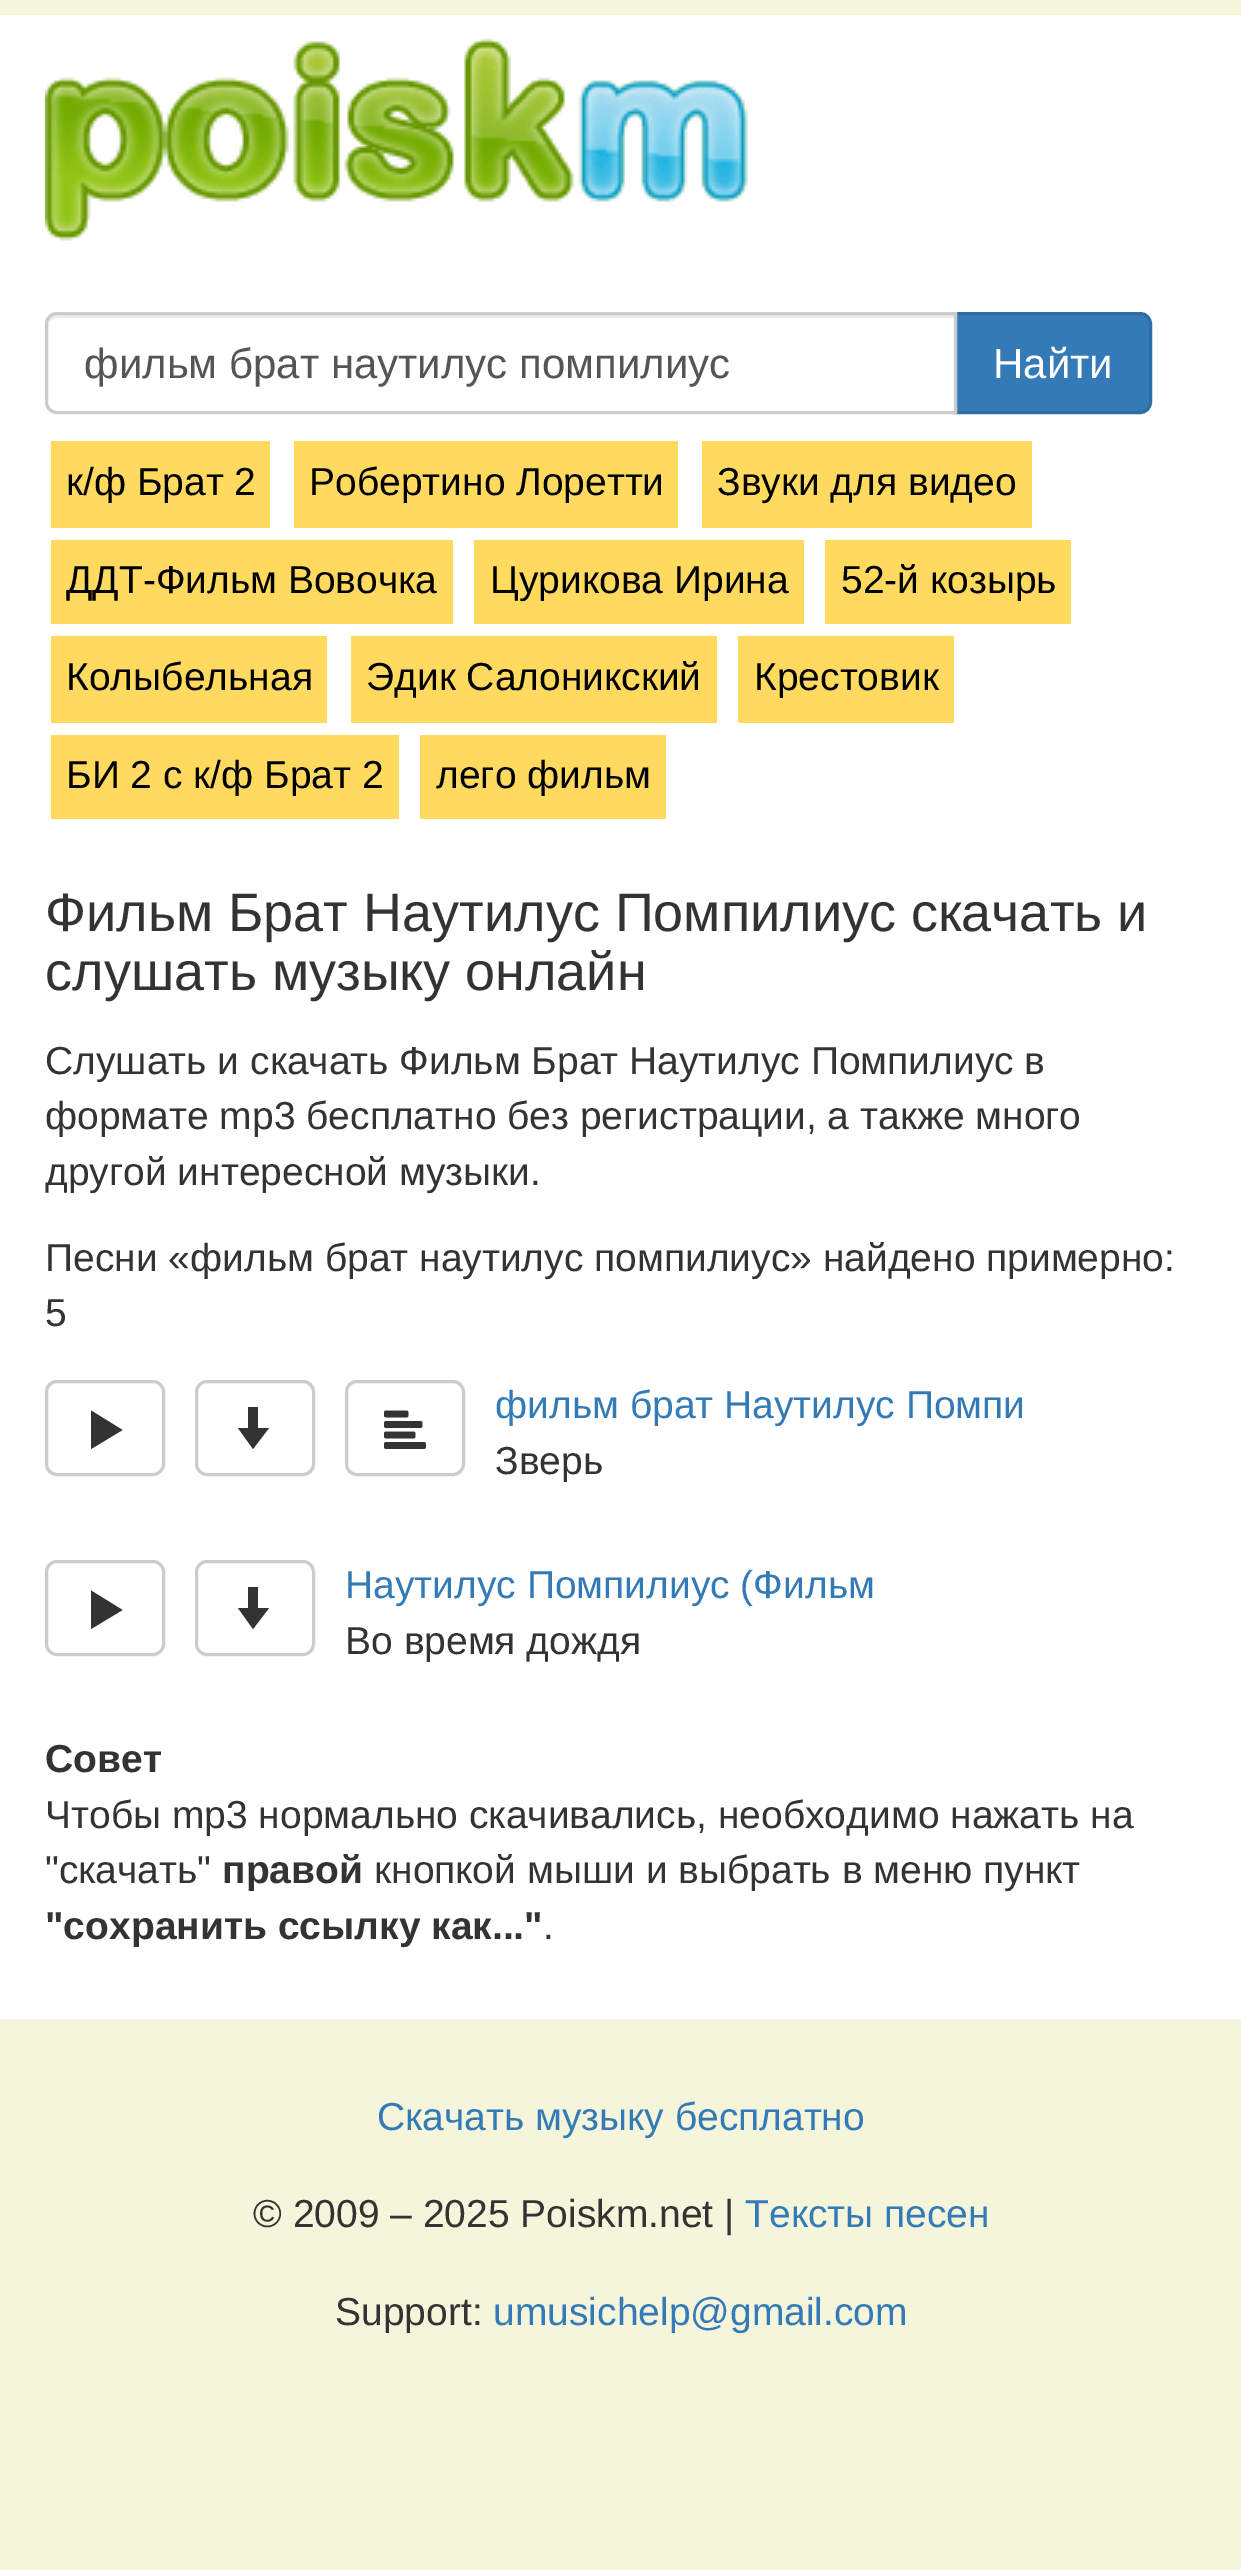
%!PS
<< /PageSize [1241 2570] >> setpagedevice
/rgb { 3 { 255 div 3 1 roll } repeat setrgbcolor } def
/font { [ exch dup neg 0 0 3 -1 roll 0 0 ] selectfont } def
/text { moveto show } def
/roundrect { 5 dict begin { /r /h /w /y /x } { exch def } forall
  x r add y moveto x w add y 2 copy h add r arct x w add y h add x 1 index r arct
  x y h add x y r arct x y 2 copy exch w add exch r arct closepath end } def
/picture { 5 dict begin { /h /w /y /x /name } { exch def } forall
  gsave x y translate w h scale
  w h 8 [w 0 0 h 0 0] name (r) file false 3 colorimage grestore end } def
0 2570 translate 1 -1 scale
4 setmiterlimit
245 245 220 rgb
0 0 1241 2570 rectfill
255 255 255 rgb
0 15 1241 2004 rectfill
(img_01.rgb) 45 38 703 203 picture
51 122 183 rgb
955.5 313.5 moveto 184.5 0 rlineto 6 0 10.5 4.5 10.5 10.5 rcurveto 0 78 rlineto 0 6 -4.5 10.5 -10.5 10.5 rcurveto -184.5 0 rlineto closepath gsave fill grestore
46 109 164 rgb
3 setlinewidth
stroke
255 255 255 rgb
57 312 moveto 900 0 rlineto 0 102 rlineto -900 0 rlineto -6.5 0 -12 -5.5 -12 -12 rcurveto 0 -78 rlineto 0 -6.5 5.5 -12 12 -12 rcurveto closepath fill
236 236 236 rgb
57 318 moveto 897 0 rlineto 0 -3 rlineto -897 0 rlineto -7 0 -9 6 -9 12 rcurveto 0 -5 4 -9 9 -9 rcurveto closepath fill
204 204 204 rgb
57 313.5 moveto 898.5 0 rlineto 0 99 rlineto -898.5 0 rlineto -6 0 -10.5 -4.5 -10.5 -10.5 rcurveto 0 -78 rlineto 0 -6 4.5 -10.5 10.5 -10.5 rcurveto closepath stroke
255 218 95 rgb
51 441 219 87 rectfill
294 441 384 87 rectfill
702 441 330 87 rectfill
51 540 402 84 rectfill
474 540 330 84 rectfill
825 540 246 84 rectfill
51 636 276 87 rectfill
351 636 366 87 rectfill
738 636 216 87 rectfill
51 735 348 84 rectfill
420 735 246 84 rectfill
204 204 204 rgb
46.5 1381.5 117 93 10.5 roundrect stroke
51 51 51 rgb
91 1449 moveto 31.5 -19 rlineto -31.5 -19.5 rlineto closepath fill
204 204 204 rgb
196.5 1381.5 117 93 10.5 roundrect stroke
51 51 51 rgb
238 1428 moveto 10 0 rlineto 0 -21 rlineto 10 0 rlineto 0 21 rlineto 11 0 rlineto -16 21 rlineto closepath fill
204 204 204 rgb
346.5 1381.5 117 93 10.5 roundrect stroke
(img_02.rgb) 384 1410 42 39 picture
46.5 1561.5 117 93 10.5 roundrect stroke
51 51 51 rgb
91 1629 moveto 31.5 -19 rlineto -31.5 -19.5 rlineto closepath fill
204 204 204 rgb
196.5 1561.5 117 93 10.5 roundrect stroke
51 51 51 rgb
238 1608 moveto 10 0 rlineto 0 -21 rlineto 10 0 rlineto 0 21 rlineto 11 0 rlineto -16 21 rlineto closepath fill
/LiberationSans-Regular 42 font
85 85 85 rgb
(фильм брат наутилус помпилиус) 84 378 text
255 255 255 rgb
(Найти) 993 378 text
/LiberationSans-Regular 39 font
0 0 0 rgb
(к/ф Брат 2) 66 495 text
(Робертино Лоретти) 309 495 text
(Звуки для видео) 717 495 text
(ДДТ-Фильм Вовочка) 66 593 text
(Цурикова Ирина) 490 593 text
(52-й козырь) 841 593 text
(Колыбельная) 66 690 text
(Эдик Салоникский) 366 690 text
(Крестовик) 754 690 text
(БИ 2 с к/ф Брат 2) 66 788 text
(лего фильм) 436 788 text
/LiberationSans-Regular 54 font
51 51 51 rgb
(Фильм Брат Наутилус Помпилиус скачать и) 45 931 text
(слушать музыку онлайн) 45 990 text
/LiberationSans-Regular 39 font
(Cлушать и скачать Фильм Брат Наутилус Помпилиус в) 45 1074 text
(формате mp3 бесплатно без регистрации, а также много) 45 1129 text
(другой интересной музыки.) 45 1185 text
(Песни «фильм брат наутилус помпилиус» найдено примерно:) 45 1271 text
(5) 45 1326 text
51 122 183 rgb
(фильм брат Наутилус Помпи) 495 1418 text
51 51 51 rgb
(Зверь) 495 1474 text
51 122 183 rgb
(Наутилус Помпилиус \(Фильм) 345 1598 text
51 51 51 rgb
(Во время дождя) 345 1654 text
/LiberationSans-Bold 39 font
(Совет) 45 1772 text
/LiberationSans-Regular 39 font
(Чтобы mp3 нормально скачивались, необходимо нажать на) 45 1828 text
("скачать") 45 1883 text
/LiberationSans-Bold 39 font
(правой) 222 1883 text
/LiberationSans-Regular 39 font
(кнопкой мыши и выбрать в меню пункт) 374 1883 text
/LiberationSans-Bold 39 font
("сохранить ссылку как...") 45 1939 text
/LiberationSans-Regular 39 font
(.) 543 1939 text
51 122 183 rgb
(Скачать музыку бесплатно) 377 2130 text
51 51 51 rgb
(© 2009 – 2025 Poiskm.net |) 253 2227 text
51 122 183 rgb
(Тексты песен) 745 2227 text
51 51 51 rgb
(Support:) 335 2325 text
51 122 183 rgb
(umusichelp@gmail.com) 493 2325 text
showpage
